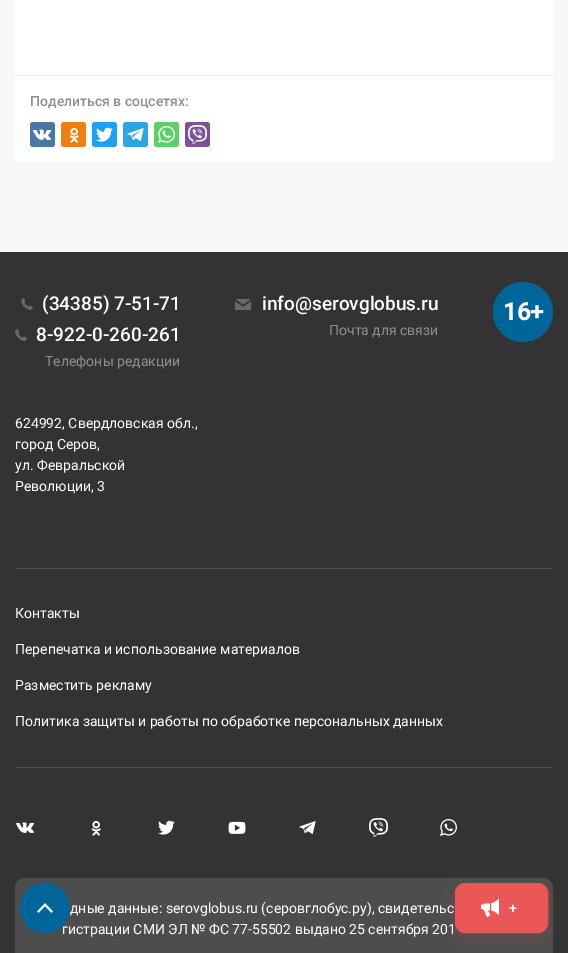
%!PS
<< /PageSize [568 953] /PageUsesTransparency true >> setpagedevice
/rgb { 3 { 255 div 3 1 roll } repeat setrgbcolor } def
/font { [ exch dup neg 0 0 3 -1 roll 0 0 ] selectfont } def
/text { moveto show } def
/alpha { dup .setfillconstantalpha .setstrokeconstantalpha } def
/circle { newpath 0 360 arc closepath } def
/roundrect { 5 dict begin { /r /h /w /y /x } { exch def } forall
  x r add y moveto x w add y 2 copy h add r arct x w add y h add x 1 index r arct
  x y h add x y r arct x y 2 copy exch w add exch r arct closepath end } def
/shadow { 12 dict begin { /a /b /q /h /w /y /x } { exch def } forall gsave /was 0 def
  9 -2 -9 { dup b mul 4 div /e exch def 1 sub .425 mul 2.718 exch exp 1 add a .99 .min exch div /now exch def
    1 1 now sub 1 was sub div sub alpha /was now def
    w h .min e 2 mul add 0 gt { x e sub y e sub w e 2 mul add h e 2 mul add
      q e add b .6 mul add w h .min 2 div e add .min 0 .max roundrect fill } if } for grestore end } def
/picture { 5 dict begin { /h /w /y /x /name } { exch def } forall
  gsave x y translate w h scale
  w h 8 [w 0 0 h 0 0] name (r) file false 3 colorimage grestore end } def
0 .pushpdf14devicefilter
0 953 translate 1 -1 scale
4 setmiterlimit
247 247 247 rgb
0 0 568 953 rectfill
255 255 255 rgb
15 0 538 162 rectfill
240 240 240 rgb
15 75 538 1 rectfill
74 118 168 rgb
30 122 25 25 3 roundrect fill
(img_01.rgb) 33 129 18 11 picture
240 127 19 rgb
61 122 25 25 3 roundrect fill
(img_02.rgb) 69 127 10 16 picture
29 161 242 rgb
92 122 25 25 3 roundrect fill
(img_03.rgb) 96 127 17 15 picture
44 165 224 rgb
123 122 25 25 3 roundrect fill
(img_04.rgb) 127 128 17 13 picture
92 208 103 rgb
154 122 25 25 3 roundrect fill
(img_05.rgb) 158 126 17 17 picture
124 82 157 rgb
185 122 25 25 3 roundrect fill
(img_06.rgb) 188 125 19 19 picture
51 51 51 rgb
0 252 568 701 rectfill
77 77 77 rgb
15 568 538 1 rectfill
(img_07.rgb) 21 298 12 12 picture
(img_07.rgb) 15 329 12 12 picture
(img_08.rgb) 235 299 17 11 picture
0 101 153 rgb
523 312 30 circle fill
77 77 77 rgb
15 767 538 1 rectfill
(img_09.rgb) 16 822 18 11 picture
(img_10.rgb) 91 820 10 16 picture
(img_11.rgb) 158 820 17 15 picture
(img_12.rgb) 228 821 18 13 picture
(img_13.rgb) 299 821 17 13 picture
(img_14.rgb) 369 818 19 19 picture
(img_15.rgb) 440 819 17 17 picture
15 878 538 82 10 roundrect fill
235 87 87 rgb
455 888 93 50 10 7.5 0.2 shadow
455.5 883.5 92 49 9.5 roundrect gsave fill grestore
stroke
(img_17.rgb) 481 899 18 18 picture
/Roboto-Medium 14 font
143 143 143 rgb
(Поделиться в соцсетях:) 30 106 text
/Roboto-Medium 19 font
255 255 255 rgb
(\(34385\) 7-51-71) 42 310 text
(8-922-0-260-261) 36 341 text
/Roboto-Regular 14 font
143 143 143 rgb
(Телефоны редакции) 45 366 text
/Roboto-Medium 19 font
255 255 255 rgb
(info@serovglobus.ru) 262 310 text
/Roboto-Regular 14 font
143 143 143 rgb
(Почта для связи) 329 335 text
255 255 255 rgb
(624992, Свердловская обл.,) 15 428 text
(город Серов,) 15 449 text
(ул. Февральской) 15 470 text
(Революции, 3) 15 491 text
/Roboto-Bold 24 font
(16+) 503 320 text
/Roboto-Regular 14 font
(Контакты) 15 618 text
(Перепечатка и использование материалов) 15 654 text
(Разместить рекламу) 15 690 text
(Политика защиты и работы по обработке персональных данных) 15 726 text
(дные данные: serovglobus.ru \(серовглобус.ру\), свидетельс) 70 913 text
(гистрации СМИ ЭЛ № ФС 77-55502 выдано 25 сентября 201) 62 934 text
0 101 153 rgb
45 908 25 circle fill
(img_16.rgb) 37 903 16 10 picture
/Roboto-Medium 14 font
255 255 255 rgb
(+) 509 913 text
.poppdf14devicefilter showpage
